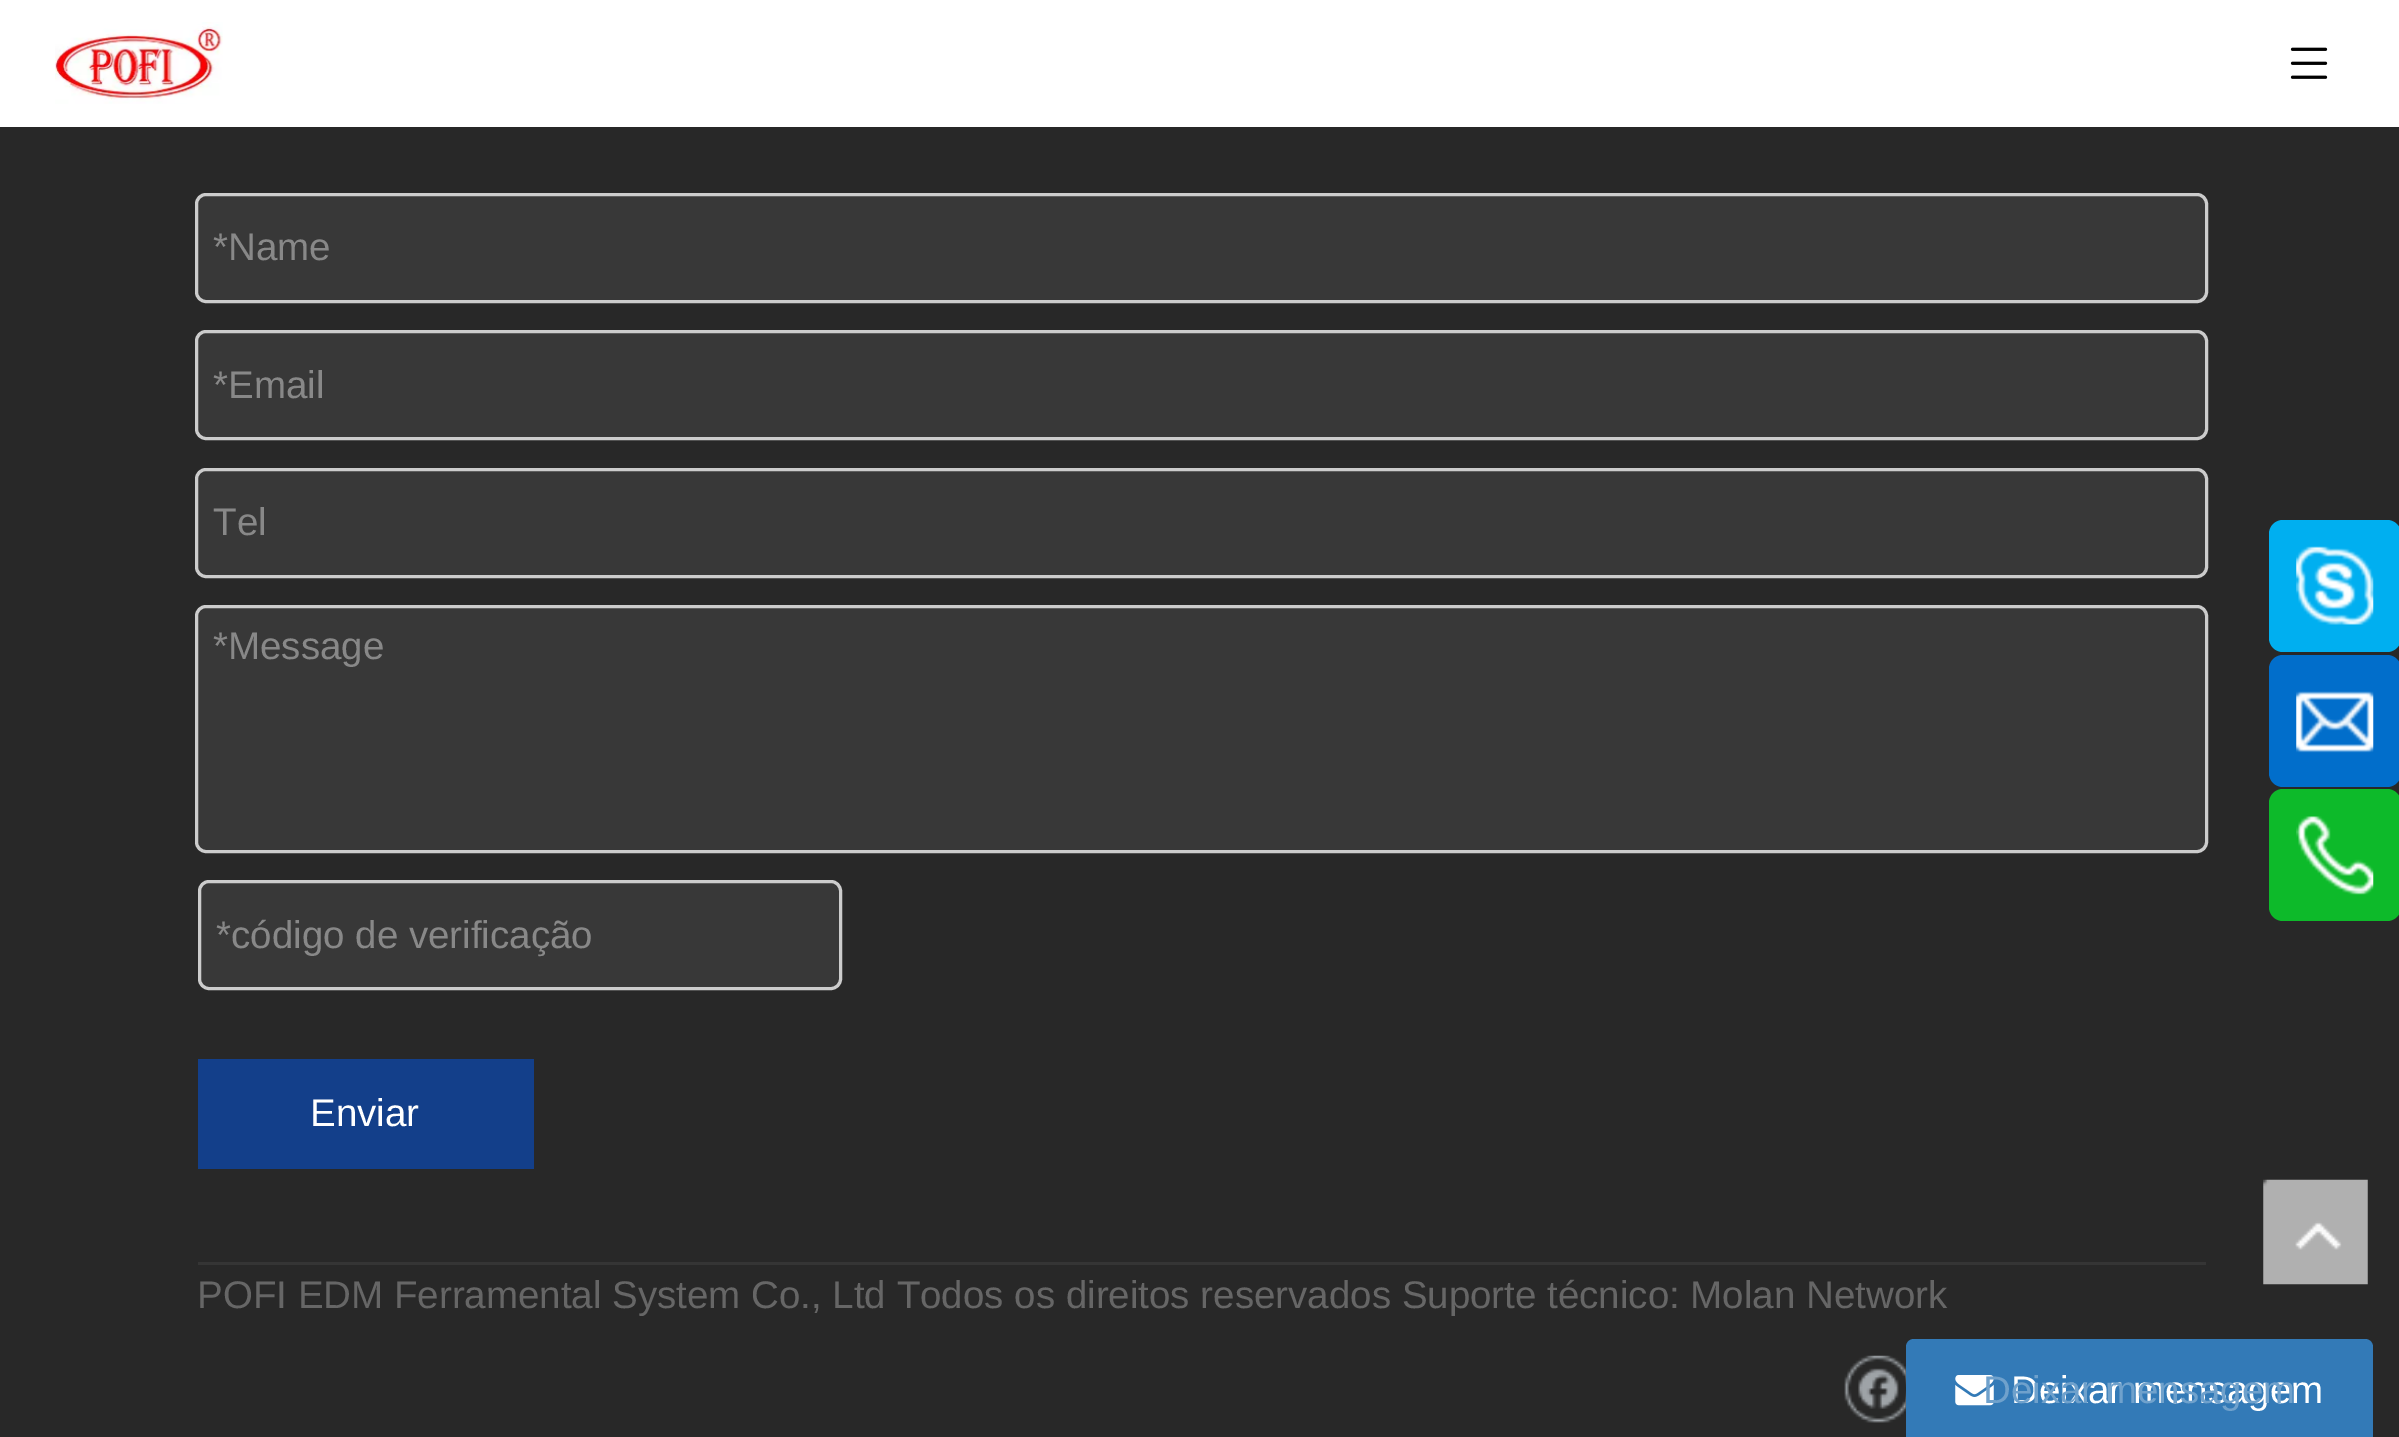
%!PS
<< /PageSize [2399 1437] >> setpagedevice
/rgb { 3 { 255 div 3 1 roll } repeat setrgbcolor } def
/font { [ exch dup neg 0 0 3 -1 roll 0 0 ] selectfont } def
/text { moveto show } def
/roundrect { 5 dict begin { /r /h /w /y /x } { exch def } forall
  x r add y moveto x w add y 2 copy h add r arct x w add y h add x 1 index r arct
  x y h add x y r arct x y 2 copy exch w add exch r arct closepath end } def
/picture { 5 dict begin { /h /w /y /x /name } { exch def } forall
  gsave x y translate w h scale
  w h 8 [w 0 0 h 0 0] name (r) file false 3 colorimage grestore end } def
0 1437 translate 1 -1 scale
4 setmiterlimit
40 40 40 rgb
0 0 2399 1437 rectfill
255 255 255 rgb
0 0 2399 127 rectfill
(img_01.rgb) 55 22 168 82 picture
(img_02.rgb) 2290 47 38 32 picture
56 56 56 rgb
196.5 194.5 2010 107 9.5 roundrect gsave fill grestore
204 204 204 rgb
3 setlinewidth
stroke
56 56 56 rgb
196.5 331.5 2010 107 9.5 roundrect gsave fill grestore
204 204 204 rgb
stroke
56 56 56 rgb
196.5 469.5 2010 107 9.5 roundrect gsave fill grestore
204 204 204 rgb
stroke
56 56 56 rgb
196.5 606.5 2010 245 9.5 roundrect gsave fill grestore
204 204 204 rgb
stroke
56 56 56 rgb
199.5 881.5 641 107 9.5 roundrect gsave fill grestore
204 204 204 rgb
stroke
19 63 138 rgb
198 1059 336 110 rectfill
51 122 183 rgb
1914 1339 moveto 451 0 rlineto 4.5 0 8 3.5 8 8 rcurveto 0 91 rlineto -467 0 rlineto 0 -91 rlineto 0 -4.5 3.5 -8 8 -8 rcurveto closepath fill
(img_03.rgb) 1955 1375 39 31 picture
0 175 240 rgb
2269 520 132 132 14 roundrect fill
(img_04.rgb) 2296 546 78 79 picture
1 110 203 rgb
2269 655 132 132 14 roundrect fill
(img_05.rgb) 2296 691 78 62 picture
13 186 42 rgb
2269 789 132 132 14 roundrect fill
(img_06.rgb) 2296 816 78 79 picture
53 53 53 rgb
198 1262 2008 3 rectfill
(img_07.rgb) 1844 1355 62 68 picture
(img_08.rgb) 2263 1179 105 106 picture
/LiberationSans-Regular 38.5 font
136 136 136 rgb
(*Name) 213 260 text
(*Email) 213 398 text
(Tel) 213 535 text
(*Message) 213 659 text
(*código de verificação) 216 948 text
255 255 255 rgb
(Enviar) 310 1126 text
(Deixar mensagem) 2011 1403 text
111 161 204 rgb
(Deixar mensagem) 1983 1403 text
102 102 102 rgb
(POFI EDM Ferramental System Co., Ltd Todos os direitos reservados Suporte técnico: Molan Network) 197 1308 text
showpage
